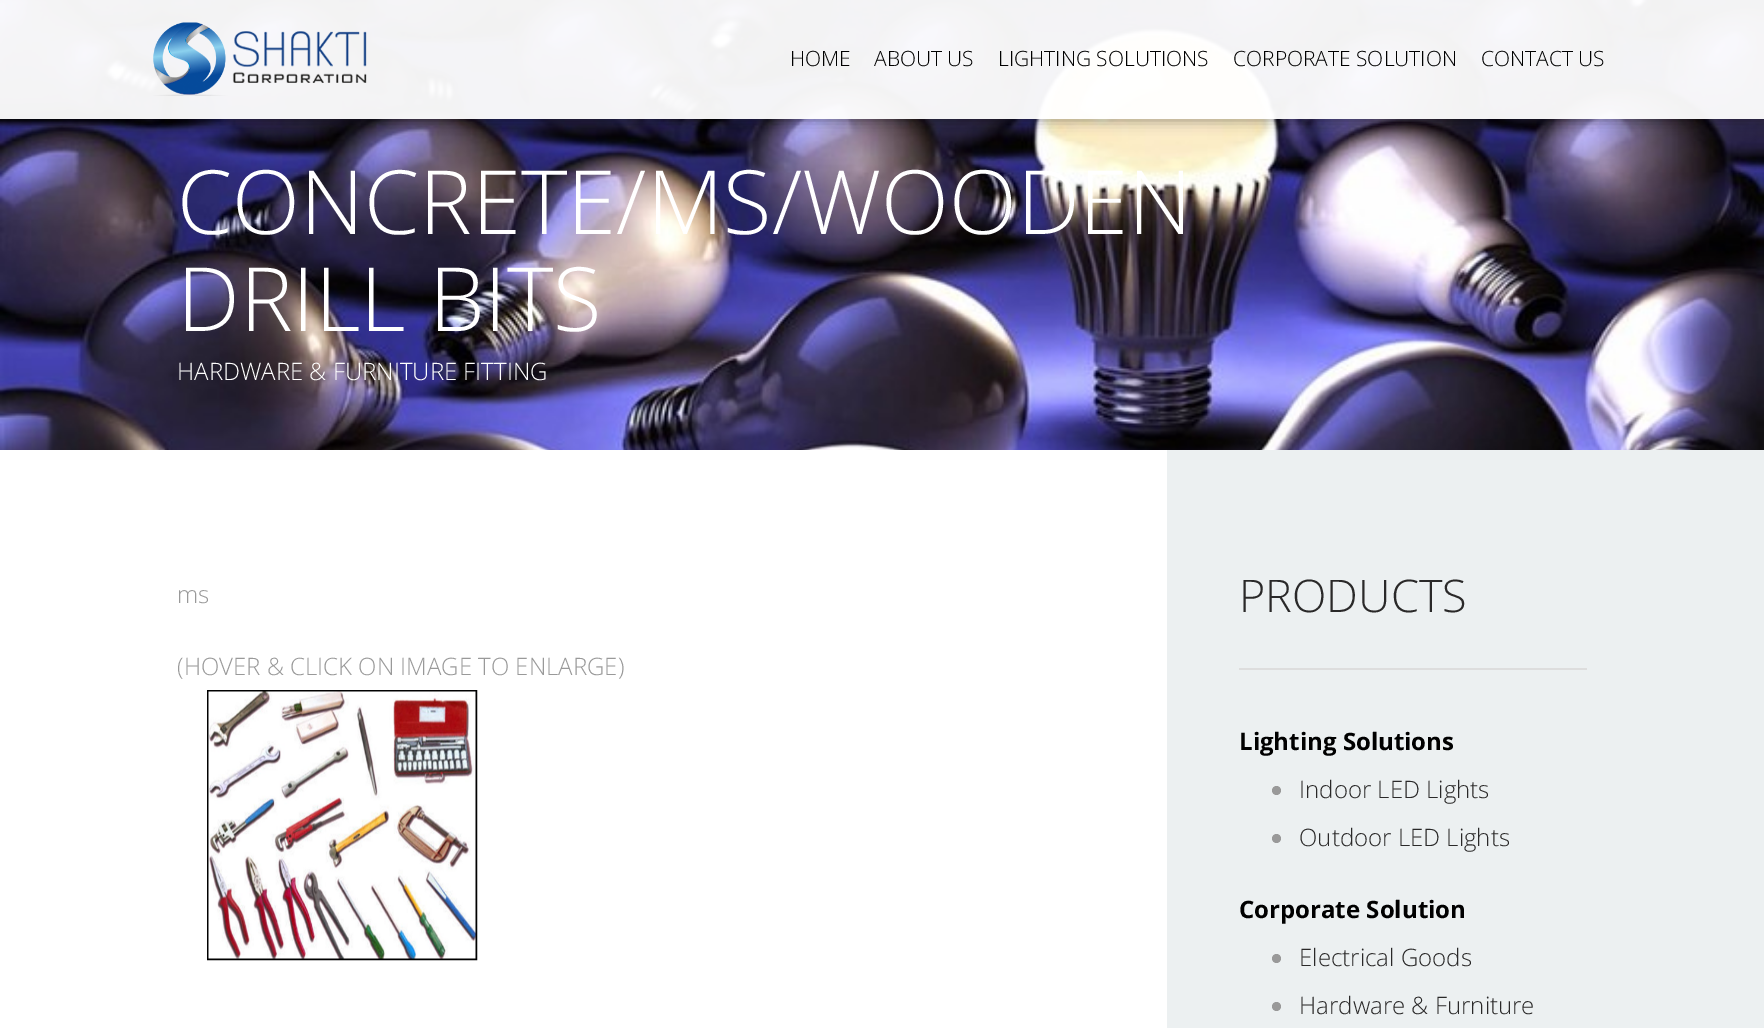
%!PS
<< /PageSize [1764 1028] /PageUsesTransparency true >> setpagedevice
/rgb { 3 { 255 div 3 1 roll } repeat setrgbcolor } def
/font { [ exch dup neg 0 0 3 -1 roll 0 0 ] selectfont } def
/text { moveto show } def
/alpha { dup .setfillconstantalpha .setstrokeconstantalpha } def
/circle { newpath 0 360 arc closepath } def
/roundrect { 5 dict begin { /r /h /w /y /x } { exch def } forall
  x r add y moveto x w add y 2 copy h add r arct x w add y h add x 1 index r arct
  x y h add x y r arct x y 2 copy exch w add exch r arct closepath end } def
/shadow { 12 dict begin { /a /b /q /h /w /y /x } { exch def } forall gsave /was 0 def
  9 -2 -9 { dup b mul 4 div /e exch def 1 sub .425 mul 2.718 exch exp 1 add a .99 .min exch div /now exch def
    1 1 now sub 1 was sub div sub alpha /was now def
    w h .min e 2 mul add 0 gt { x e sub y e sub w e 2 mul add h e 2 mul add
      q e add b .6 mul add w h .min 2 div e add .min 0 .max roundrect fill } if } for grestore end } def
/picture { 5 dict begin { /h /w /y /x /name } { exch def } forall
  gsave x y translate w h scale
  w h 8 [w 0 0 h 0 0] name (r) file false 3 colorimage grestore end } def
0 .pushpdf14devicefilter
0 1028 translate 1 -1 scale
4 setmiterlimit
255 255 255 rgb
0 0 1764 1028 rectfill
(img_02.rgb) 0 0 1764 450 picture
gsave
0 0 moveto 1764 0 rlineto 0 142 rlineto -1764 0 rlineto closepath 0 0 moveto 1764 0 rlineto 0 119 rlineto -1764 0 rlineto closepath eoclip newpath
0 0 0 rgb
0 2 1764 118 0 7 0.4 shadow
grestore
0.95 alpha
0 0 1764 119 rectfill
1 alpha
(img_01.rgb) 153 22 214 74 picture
236 240 241 rgb
1167 450 597 578 rectfill
0 0 0 rgb
2 setlinewidth
208 691 268 268 rectstroke
(img_03.rgb) 208 691 268 268 picture
221 221 221 rgb
1239 668 348 2 rectfill
153 153 153 rgb
1276.5 790.5 4.5 circle fill
1276.5 838.5 4.5 circle fill
1276.5 958.5 4.5 circle fill
1276.5 1006.5 4.5 circle fill
/OpenSans-Light 21 font
0 0 0 rgb
(HOME) 790 66 text
(ABOUT US) 874 66 text
(LIGHTING SOLUTIONS) 998 66 text
(CORPORATE SOLUTION) 1233 66 text
(CONTACT US) 1481 66 text
/OpenSans-Light 88.75 font
255 255 255 rgb
(CONCRETE/MS/WOODEN) 177 234 text
(DRILL BITS) 177 331 text
/OpenSans-Light 24 font
(HARDWARE & FURNITURE FITTING) 177 380 text
153 153 153 rgb
(ms) 177 603 text
(\(HOVER & CLICK ON IMAGE TO ENLARGE\)) 177 675 text
/OpenSans-Light 45 font
42 41 41 rgb
(PRODUCTS) 1239 612 text
/OpenSans-Bold 24 font
0 0 0 rgb
(Lighting Solutions) 1239 750 text
/OpenSans-Light 24 font
42 41 41 rgb
(Indoor LED Lights) 1299 798 text
(Outdoor LED Lights) 1299 846 text
/OpenSans-Bold 24 font
0 0 0 rgb
(Corporate Solution) 1239 918 text
/OpenSans-Light 24 font
42 41 41 rgb
(Electrical Goods) 1299 966 text
(Hardware & Furniture) 1299 1014 text
.poppdf14devicefilter showpage
